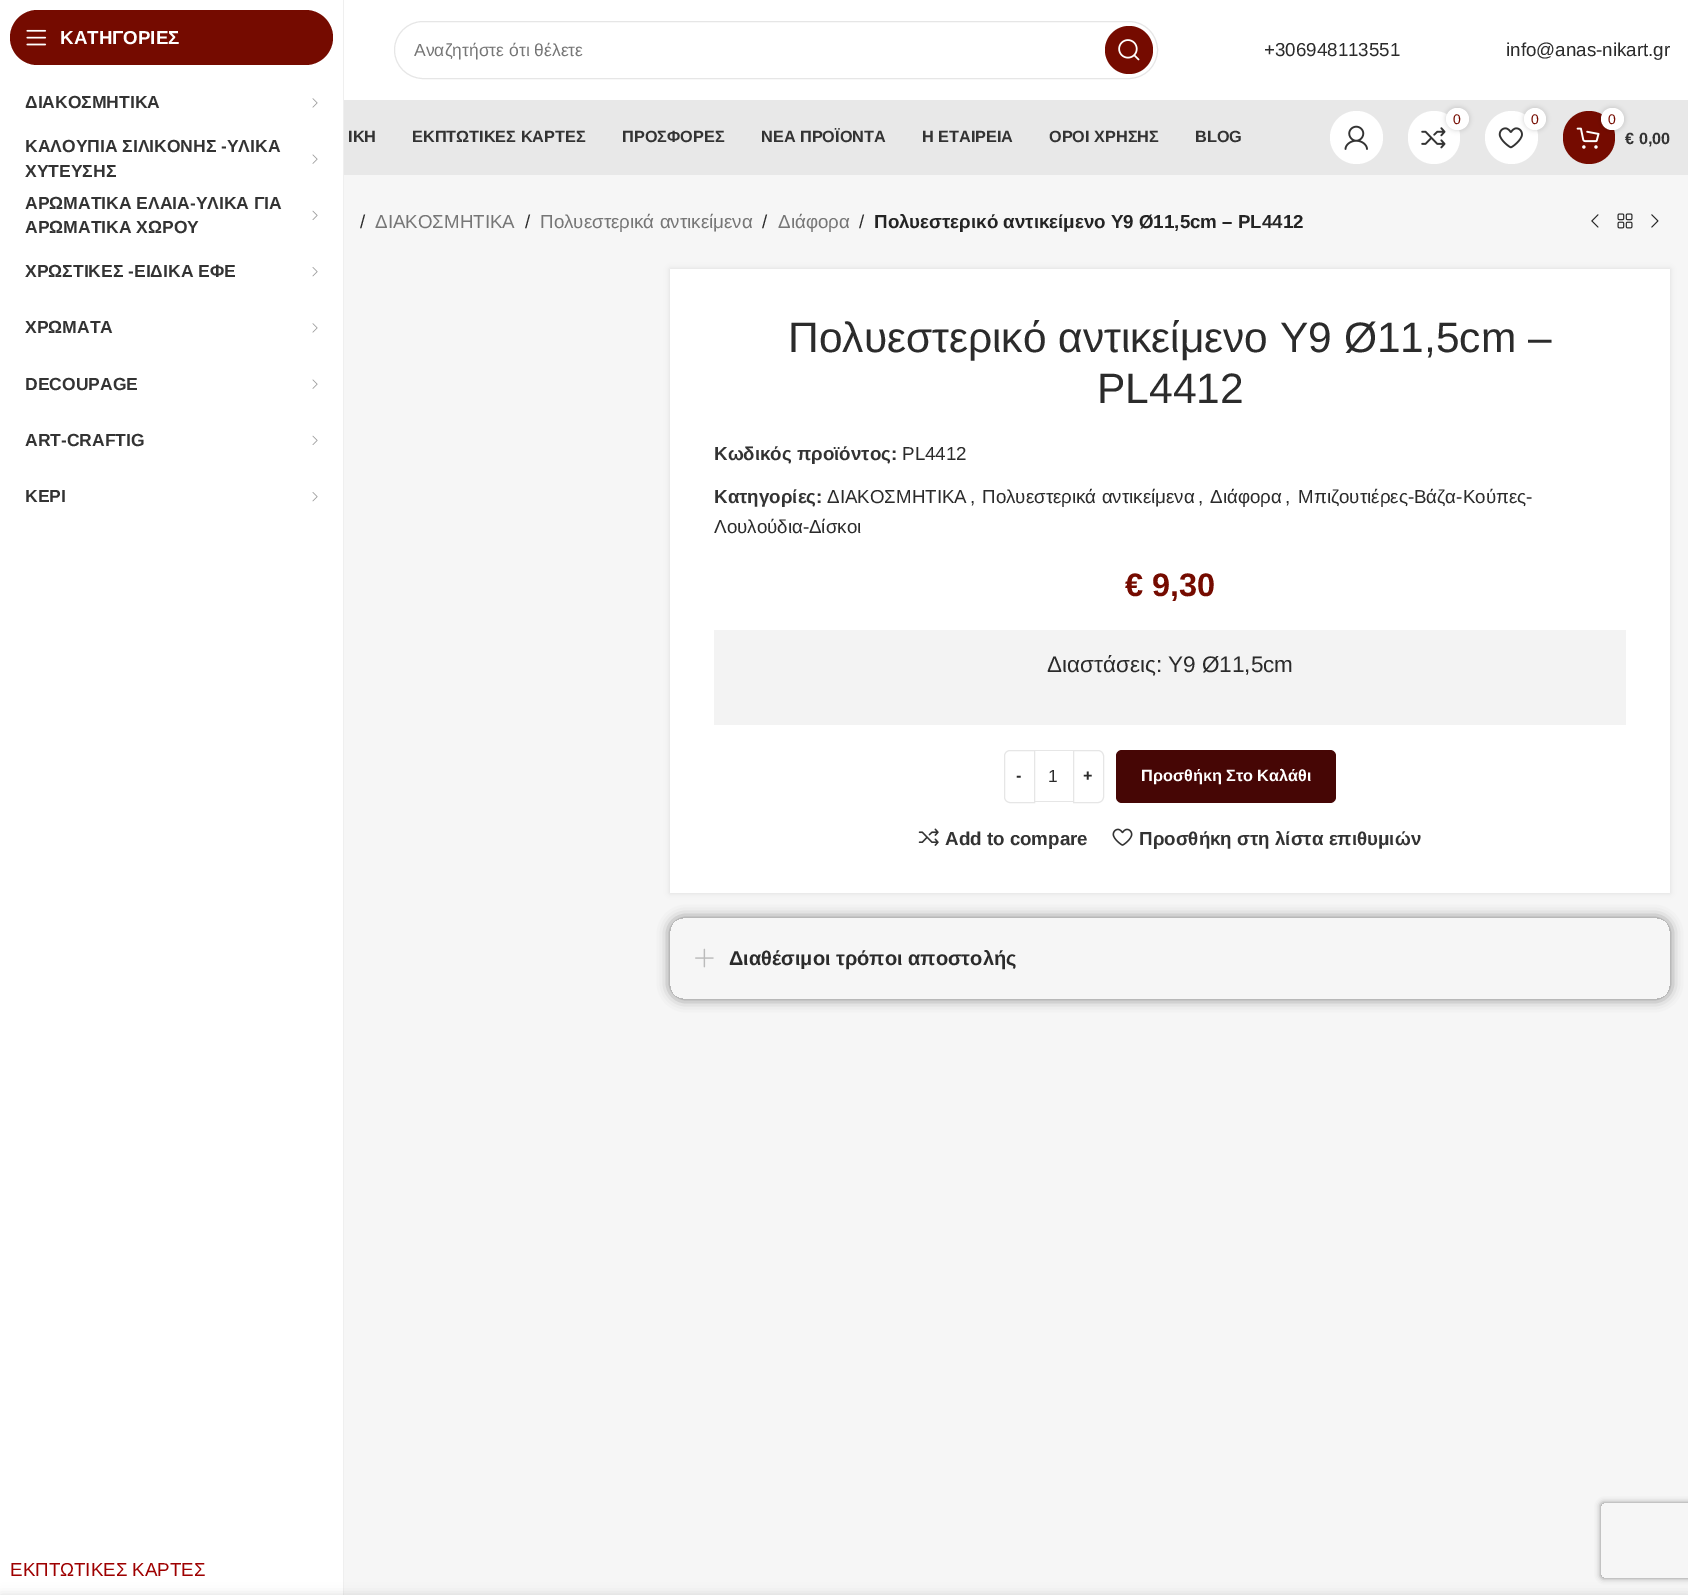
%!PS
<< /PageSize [1688 1595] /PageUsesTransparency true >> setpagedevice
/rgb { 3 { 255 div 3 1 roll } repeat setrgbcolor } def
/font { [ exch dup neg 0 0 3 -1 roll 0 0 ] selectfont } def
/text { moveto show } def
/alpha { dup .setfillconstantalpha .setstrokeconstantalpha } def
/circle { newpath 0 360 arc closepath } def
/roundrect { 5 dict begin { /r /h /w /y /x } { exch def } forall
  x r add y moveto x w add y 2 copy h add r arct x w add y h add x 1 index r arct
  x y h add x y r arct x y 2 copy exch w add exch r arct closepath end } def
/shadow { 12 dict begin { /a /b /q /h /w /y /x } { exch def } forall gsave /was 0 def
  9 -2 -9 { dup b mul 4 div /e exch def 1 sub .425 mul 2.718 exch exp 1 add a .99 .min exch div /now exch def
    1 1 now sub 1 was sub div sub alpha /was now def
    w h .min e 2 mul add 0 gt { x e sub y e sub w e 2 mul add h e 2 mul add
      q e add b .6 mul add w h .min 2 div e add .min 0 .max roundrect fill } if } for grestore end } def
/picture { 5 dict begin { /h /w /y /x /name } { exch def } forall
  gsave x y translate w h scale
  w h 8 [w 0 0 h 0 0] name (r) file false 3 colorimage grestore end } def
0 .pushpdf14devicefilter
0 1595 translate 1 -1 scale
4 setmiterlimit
255 255 255 rgb
0 0 1688 1595 rectfill
239 239 239 rgb
343 0 1 1595 rectfill
117 11 0 rgb
10 10 323 55 27.5 roundrect fill
(img_01.rgb) 26 29 21 17 picture
(img_02.rgb) 312 98 6 10 picture
(img_03.rgb) 312 154 6 10 picture
(img_04.rgb) 312 210 6 10 picture
(img_05.rgb) 312 267 6 10 picture
(img_02.rgb) 312 323 6 10 picture
(img_03.rgb) 312 379 6 10 picture
(img_04.rgb) 312 435 6 10 picture
(img_05.rgb) 312 492 6 10 picture
230 230 230 rgb
394.5 21.5 763 57 28.5 roundrect stroke
117 11 0 rgb
1129 50 24 circle fill
(img_06.rgb) 1118 39 22 22 picture
232 232 232 rgb
344 100 1344 75 rectfill
255 255 255 rgb
1356.5 137.5 26.5 circle fill
(img_07.rgb) 1344 125 24 25 picture
1408 111 52 53 26 roundrect fill
(img_08.rgb) 1421 127 25 22 picture
0 0 0 rgb
1446 108 23 22 11 2.5 0.17 shadow
255 255 255 rgb
1446 108 23 22 11 roundrect fill
1511.5 137.5 26.5 circle fill
(img_09.rgb) 1498 127 25 22 picture
0 0 0 rgb
1524 108 22 22 11 2.5 0.17 shadow
255 255 255 rgb
1535 119 11 circle fill
117 11 0 rgb
1563 111 52 53 26 roundrect fill
(img_10.rgb) 1576 127 24 22 picture
0 0 0 rgb
1601 108 23 22 11 2.5 0.17 shadow
255 255 255 rgb
1601 108 23 22 11 roundrect fill
246 246 246 rgb
344 175 1344 1420 rectfill
(img_11.rgb) 1591 214 8 14 picture
(img_12.rgb) 1617 213 16 16 picture
(img_13.rgb) 1651 214 8 14 picture
0 0 0 rgb
670 269 1000 624 0 3 0.1 shadow
255 255 255 rgb
670 269 1000 624 rectfill
243 243 243 rgb
714 630 912 95 rectfill
230 230 230 rgb
1010 750.5 moveto 24.5 0 rlineto 0 52 rlineto -24.5 0 rlineto -3 0 -5.5 -2.5 -5.5 -5.5 rcurveto 0 -41 rlineto 0 -3 2.5 -5.5 5.5 -5.5 rcurveto closepath stroke
1035 750 38 1 rectfill
1035 801 38 1 rectfill
1073.5 750.5 moveto 24.5 0 rlineto 3 0 5.5 2.5 5.5 5.5 rcurveto 0 41 rlineto 0 3 -2.5 5.5 -5.5 5.5 rcurveto -24.5 0 rlineto closepath stroke
70 6 5 rgb
1116 750 220 53 6 roundrect fill
(img_14.rgb) 918 828 21 18 picture
(img_15.rgb) 1112 828 21 18 picture
gsave
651 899 moveto 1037 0 rlineto 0 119 rlineto -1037 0 rlineto closepath 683 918 moveto 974 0 rlineto 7 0 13 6 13 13 rcurveto 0 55 rlineto 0 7 -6 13 -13 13 rcurveto -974 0 rlineto -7 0 -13 -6 -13 -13 rcurveto 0 -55 rlineto 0 -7 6 -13 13 -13 rcurveto closepath eoclip newpath
0 0 0 rgb
670 918 1000 81 13 6 0.5 shadow
grestore
(img_16.rgb) 695 948 19 20 picture
gsave
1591 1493 moveto 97 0 rlineto 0 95 rlineto -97 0 rlineto closepath 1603.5 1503 moveto 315 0 rlineto 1.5 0 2.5 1 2.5 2.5 rcurveto 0 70 rlineto 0 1.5 -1 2.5 -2.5 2.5 rcurveto -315 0 rlineto -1.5 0 -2.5 -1 -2.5 -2.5 rcurveto 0 -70 rlineto 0 -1.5 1 -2.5 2.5 -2.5 rcurveto closepath eoclip newpath
128 128 128 rgb
1601 1503 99 75 2.5 3 1 shadow
grestore
0 0 0 rgb
0 1595 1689 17 0 5.5 0.14 shadow
/LiberationSans-Bold 18.75 font
255 255 255 rgb
(ΚΑΤΗΓΟΡΙΕΣ) 60 44 text
/LiberationSans-Bold 17.5 font
51 51 51 rgb
(ΔΙΑΚΟΣΜΗΤΙΚΑ) 25 108 text
(ΚΑΛΟΥΠΙΑ ΣΙΛΙΚΟΝΗΣ -ΥΛΙΚΑ) 25 152 text
(ΧΥΤΕΥΣΗΣ) 25 177 text
(ΑΡΩΜΑΤΙΚΑ ΕΛΑΙΑ-ΥΛΙΚΑ ΓΙΑ) 25 209 text
(ΑΡΩΜΑΤΙΚΑ ΧΩΡΟΥ) 25 233 text
(ΧΡΩΣΤΙΚΕΣ -ΕΙΔΙΚΑ ΕΦΕ) 25 277 text
(ΧΡΩΜΑΤΑ) 25 333 text
(DECOUPAGE) 25 390 text
(ART-CRAFTIG) 25 446 text
(ΚΕΡΙ) 25 502 text
/LiberationSans-Regular 18.75 font
158 0 0 rgb
(ΕΚΠΤΩΤΙΚΕΣ ΚΑΡΤΕΣ) 10 1576 text
/LiberationSans-Regular 17.5 font
118 118 118 rgb
(Αναζητήστε ότι θέλετε) 414 56 text
/LiberationSans-Regular 18.75 font
43 43 43 rgb
(+306948113551) 1264 56 text
(info@anas-nikart.gr) 1506 56 text
/LiberationSans-Bold 16.25 font
51 51 51 rgb
(ΙΚΗ) 348 142 text
(ΕΚΠΤΩΤΙΚΕΣ ΚΑΡΤΕΣ) 412 142 text
(ΠΡΟΣΦΟΡΕΣ) 622 142 text
(ΝΕΑ ΠΡΟΪΟΝΤΑ) 761 142 text
(Η ΕΤΑΙΡΕΙΑ) 922 142 text
(ΟΡΟΙ ΧΡΗΣΗΣ) 1049 142 text
(BLOG) 1195 142 text
/LiberationSans-Regular 14 font
117 11 0 rgb
(0) 1453 124 text
(0) 1531 124 text
(0) 1608 124 text
/LiberationSans-Bold 16.25 font
51 51 51 rgb
(€ 0,00) 1625 144 text
/LiberationSans-Regular 18.75 font
43 43 43 rgb
(/) 360 228 text
118 118 118 rgb
(ΔΙΑΚΟΣΜΗΤΙΚΑ) 375 228 text
43 43 43 rgb
(/) 525 228 text
118 118 118 rgb
(Πολυεστερικά αντικείμενα) 540 228 text
43 43 43 rgb
(/) 762 228 text
118 118 118 rgb
(Διάφορα) 778 228 text
43 43 43 rgb
(/) 859 228 text
/LiberationSans-Bold 18.75 font
36 36 36 rgb
(Πολυεστερικό αντικείμενο Y9 Ø11,5cm – PL4412) 874 228 text
/LiberationSans-Regular 42.5 font
43 43 43 rgb
(Πολυεστερικό αντικείμενο Y9 Ø11,5cm –) 788 352 text
(PL4412) 1097 403 text
/LiberationSans-Bold 18.75 font
51 51 51 rgb
(Κωδικός προϊόντος:) 714 460 text
/LiberationSans-Regular 18.75 font
43 43 43 rgb
(PL4412) 902 460 text
/LiberationSans-Bold 18.75 font
51 51 51 rgb
(Κατηγορίες:) 714 503 text
/LiberationSans-Regular 18.75 font
43 43 43 rgb
(ΔΙΑΚΟΣΜΗΤΙΚΑ) 827 503 text
(,) 970 503 text
(Πολυεστερικά αντικείμενα) 982 503 text
(,) 1198 503 text
(Διάφορα) 1210 503 text
(,) 1285 503 text
(Μπιζουτιέρες-Βάζα-Κούπες-) 1298 503 text
(Λουλούδια-Δίσκοι) 714 533 text
/LiberationSans-Bold 32.5 font
117 11 0 rgb
(€ 9,30) 1125 596 text
/LiberationSans-Regular 22.5 font
43 43 43 rgb
(Διαστάσεις: Y9 Ø11,5cm) 1047 672 text
/LiberationSans-Bold 16.25 font
(-) 1016 781 text
/LiberationSans-Regular 17.5 font
(1) 1048 782 text
/LiberationSans-Bold 16.25 font
(+) 1083 781 text
255 255 255 rgb
(Προσθήκη Στο Καλάθι) 1141 781 text
/LiberationSans-Bold 18.75 font
51 51 51 rgb
(Add to compare) 945 845 text
(Προσθήκη στη λίστα επιθυμιών) 1139 845 text
/LiberationSans-Bold 20 font
43 43 43 rgb
(Διαθέσιμοι τρόποι αποστολής) 729 965 text
.poppdf14devicefilter showpage
